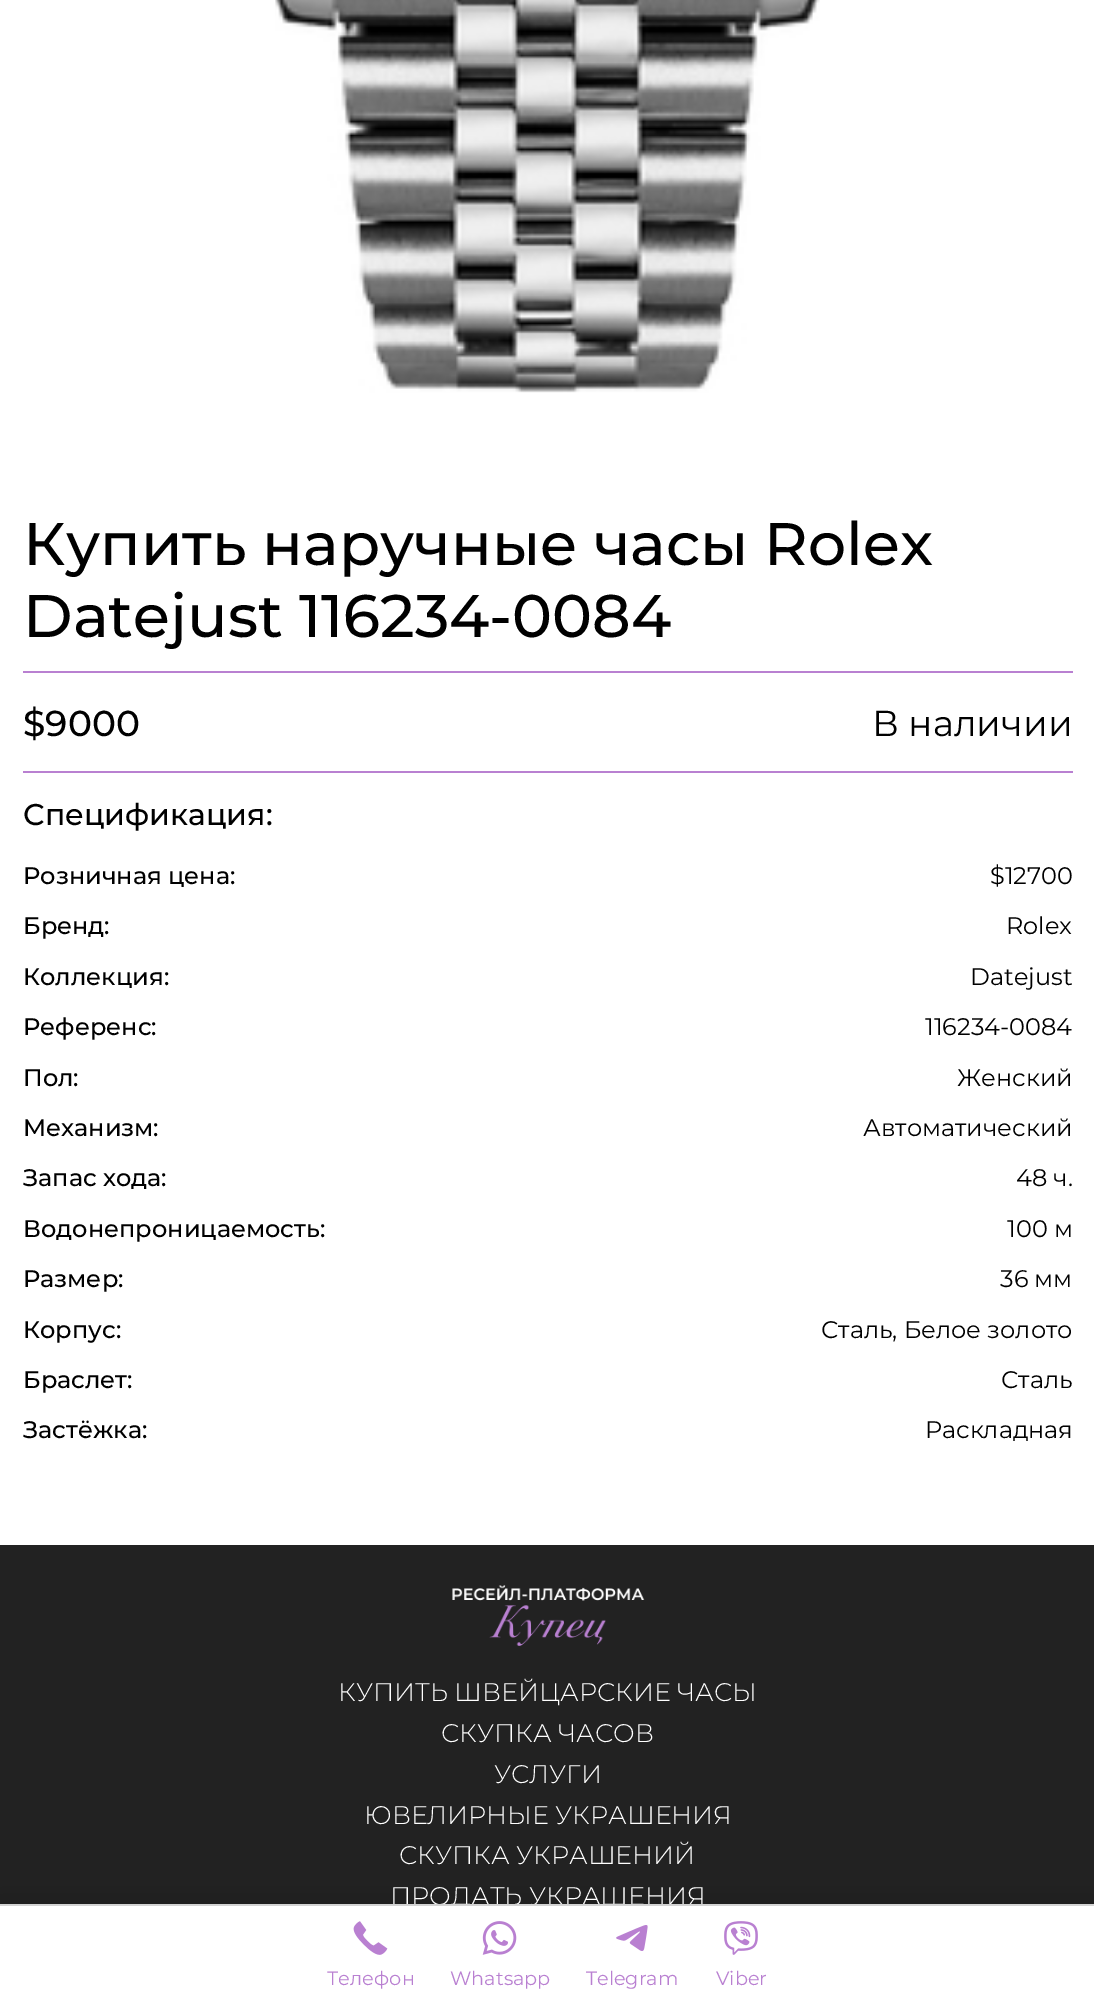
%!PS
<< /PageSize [1094 2001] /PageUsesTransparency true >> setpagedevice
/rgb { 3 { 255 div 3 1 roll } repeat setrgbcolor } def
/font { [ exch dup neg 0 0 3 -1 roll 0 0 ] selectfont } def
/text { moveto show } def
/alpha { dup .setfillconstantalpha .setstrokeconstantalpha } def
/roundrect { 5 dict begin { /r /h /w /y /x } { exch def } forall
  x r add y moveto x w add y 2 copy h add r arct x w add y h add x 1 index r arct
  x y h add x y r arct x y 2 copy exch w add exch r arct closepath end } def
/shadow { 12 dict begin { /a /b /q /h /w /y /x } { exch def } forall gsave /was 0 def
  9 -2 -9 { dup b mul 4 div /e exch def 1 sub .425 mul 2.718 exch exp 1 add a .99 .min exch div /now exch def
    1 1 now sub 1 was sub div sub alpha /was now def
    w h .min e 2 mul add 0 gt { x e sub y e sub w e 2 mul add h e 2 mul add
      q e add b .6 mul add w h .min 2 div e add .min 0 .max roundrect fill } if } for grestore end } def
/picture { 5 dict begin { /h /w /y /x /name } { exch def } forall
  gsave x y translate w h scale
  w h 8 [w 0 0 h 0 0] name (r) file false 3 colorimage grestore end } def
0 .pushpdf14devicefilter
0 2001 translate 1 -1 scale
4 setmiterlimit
255 255 255 rgb
0 0 1094 2001 rectfill
(img_01.rgb) 275 0 545 393 picture
185 128 209 rgb
23 671 1050 2 rectfill
23 771 1050 2 rectfill
34 34 34 rgb
0 1545 1094 359 rectfill
(img_02.rgb) 452 1585 193 61 picture
0 0 0 rgb
0 1904 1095 97 0 15 0.2 shadow
255 255 255 rgb
0 1906 1094 95 rectfill
(img_03.rgb) 353 1921 35 34 picture
(img_04.rgb) 482 1921 35 34 picture
(img_05.rgb) 616 1925 32 26 picture
(img_06.rgb) 724 1921 34 34 picture
/Montserrat-Medium 60 font
0 0 0 rgb
(Купить наручные часы Rolex) 23 565 text
(Datejust 116234-0084) 23 637 text
/Montserrat-Medium 36 font
($9000) 23 736 text
/Montserrat-Regular 36 font
(В наличии) 872 736 text
/Montserrat-Medium 30 font
(Спецификация:) 23 825 text
/Montserrat-Medium 24 font
(Розничная цена:) 23 884 text
/Montserrat-Regular 24 font
($12700) 990 884 text
/Montserrat-Medium 24 font
(Бренд:) 23 934 text
/Montserrat-Regular 24 font
(Rolex) 1006 934 text
/Montserrat-Medium 24 font
(Коллекция:) 23 985 text
/Montserrat-Regular 24 font
(Datejust) 970 985 text
/Montserrat-Medium 24 font
(Референс:) 23 1035 text
/Montserrat-Regular 24 font
(116234-0084) 925 1035 text
/Montserrat-Medium 24 font
(Пол:) 23 1086 text
/Montserrat-Regular 24 font
(Женский) 957 1086 text
/Montserrat-Medium 24 font
(Механизм:) 23 1136 text
/Montserrat-Regular 24 font
(Автоматический) 863 1136 text
/Montserrat-Medium 24 font
(Запас хода:) 23 1186 text
/Montserrat-Regular 24 font
(48 ч.) 1016 1186 text
/Montserrat-Medium 24 font
(Водонепроницаемость:) 23 1237 text
/Montserrat-Regular 24 font
(100 м) 1007 1237 text
/Montserrat-Medium 24 font
(Размер:) 23 1287 text
/Montserrat-Regular 24 font
(36 мм) 1000 1287 text
/Montserrat-Medium 24 font
(Корпус:) 23 1338 text
/Montserrat-Regular 24 font
(Сталь, Белое золото) 821 1338 text
/Montserrat-Medium 24 font
(Браслет:) 23 1388 text
/Montserrat-Regular 24 font
(Сталь) 1001 1388 text
/Montserrat-Medium 24 font
(Застёжка:) 23 1438 text
/Montserrat-Regular 24 font
(Раскладная) 925 1438 text
/Montserrat-Light 25.5 font
255 255 255 rgb
(КУПИТЬ ШВЕЙЦАРСКИЕ ЧАСЫ) 338 1701 text
(СКУПКА ЧАСОВ) 441 1742 text
(УСЛУГИ) 494 1783 text
(ЮВЕЛИРНЫЕ УКРАШЕНИЯ) 364 1824 text
(СКУПКА УКРАШЕНИЙ) 399 1864 text
(ПРОДАТЬ УКРАШЕНИЯ) 390 1905 text
211 211 211 rgb
0 1904 1094 2 rectfill
/Montserrat-Regular 19.25 font
185 128 209 rgb
(Телефон) 327 1985 text
(Whatsapp) 450 1985 text
(Telegram) 586 1985 text
(Viber) 716 1985 text
.poppdf14devicefilter showpage
